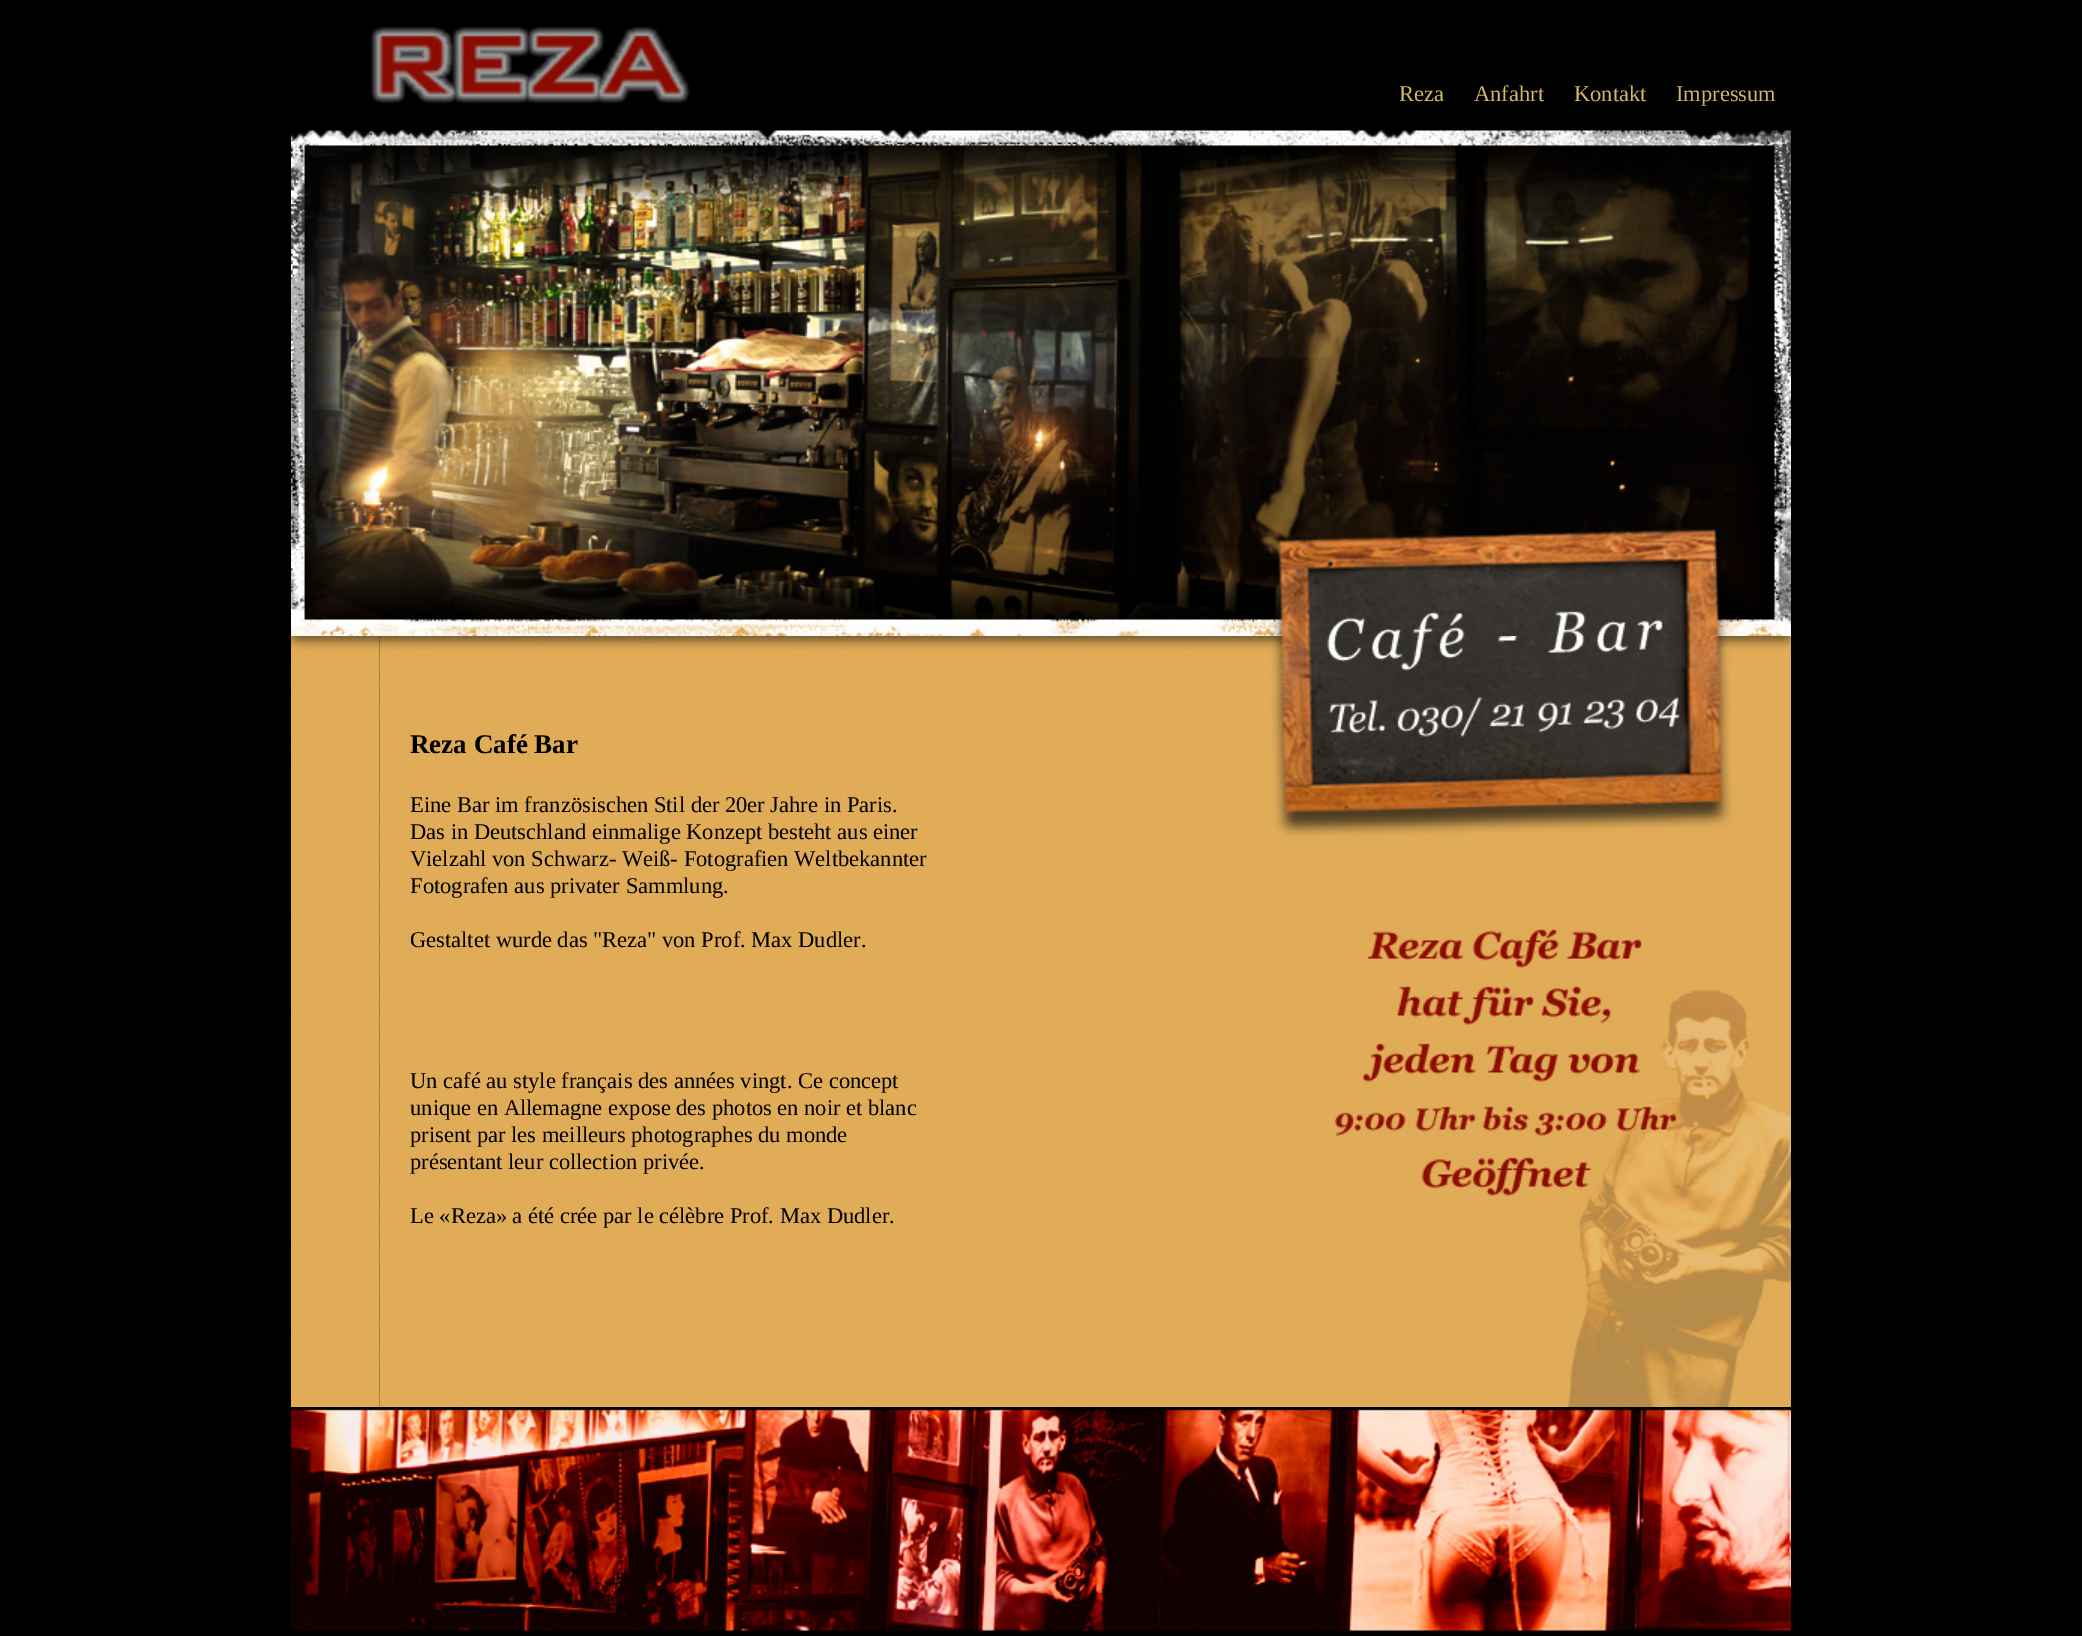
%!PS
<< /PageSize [2082 1636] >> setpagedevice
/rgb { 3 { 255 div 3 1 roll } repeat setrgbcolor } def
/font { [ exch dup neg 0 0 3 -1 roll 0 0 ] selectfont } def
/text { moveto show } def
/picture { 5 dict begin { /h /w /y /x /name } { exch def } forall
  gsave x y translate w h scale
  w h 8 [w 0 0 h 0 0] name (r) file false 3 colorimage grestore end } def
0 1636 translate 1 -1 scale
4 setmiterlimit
0 0 0 rgb
0 0 2082 1636 rectfill
(img_01.rgb) 291 26 1500 610 picture
(img_02.rgb) 291 636 89 771 picture
(img_03.rgb) 379 636 824 771 picture
(img_04.rgb) 1203 636 588 771 picture
(img_05.rgb) 291 1407 1500 224 picture
/LiberationSerif-Regular 22.5 font
212 182 105 rgb
(Reza) 1399 101 text
(Anfahrt) 1474 101 text
(Kontakt) 1574 101 text
(Impressum) 1676 101 text
/LiberationSerif-Bold 27 font
0 0 0 rgb
(Reza Café Bar) 410 753 text
/LiberationSerif-Regular 22.5 font
(Eine Bar im französischen Stil der 20er Jahre in Paris.) 410 812 text
(Das in Deutschland einmalige Konzept besteht aus einer) 410 839 text
(Vielzahl von Schwarz- Weiß- Fotografien Weltbekannter) 410 866 text
(Fotografen aus privater Sammlung.) 410 893 text
(Gestaltet wurde das "Reza" von Prof. Max Dudler.) 410 947 text
(Un café au style français des années vingt. Ce concept) 410 1088 text
(unique en Allemagne expose des photos en noir et blanc) 410 1115 text
(prisent par les meilleurs photographes du monde) 410 1142 text
(présentant leur collection privée.) 410 1169 text
(Le «Reza» a été crée par le célèbre Prof. Max Dudler.) 410 1223 text
showpage
